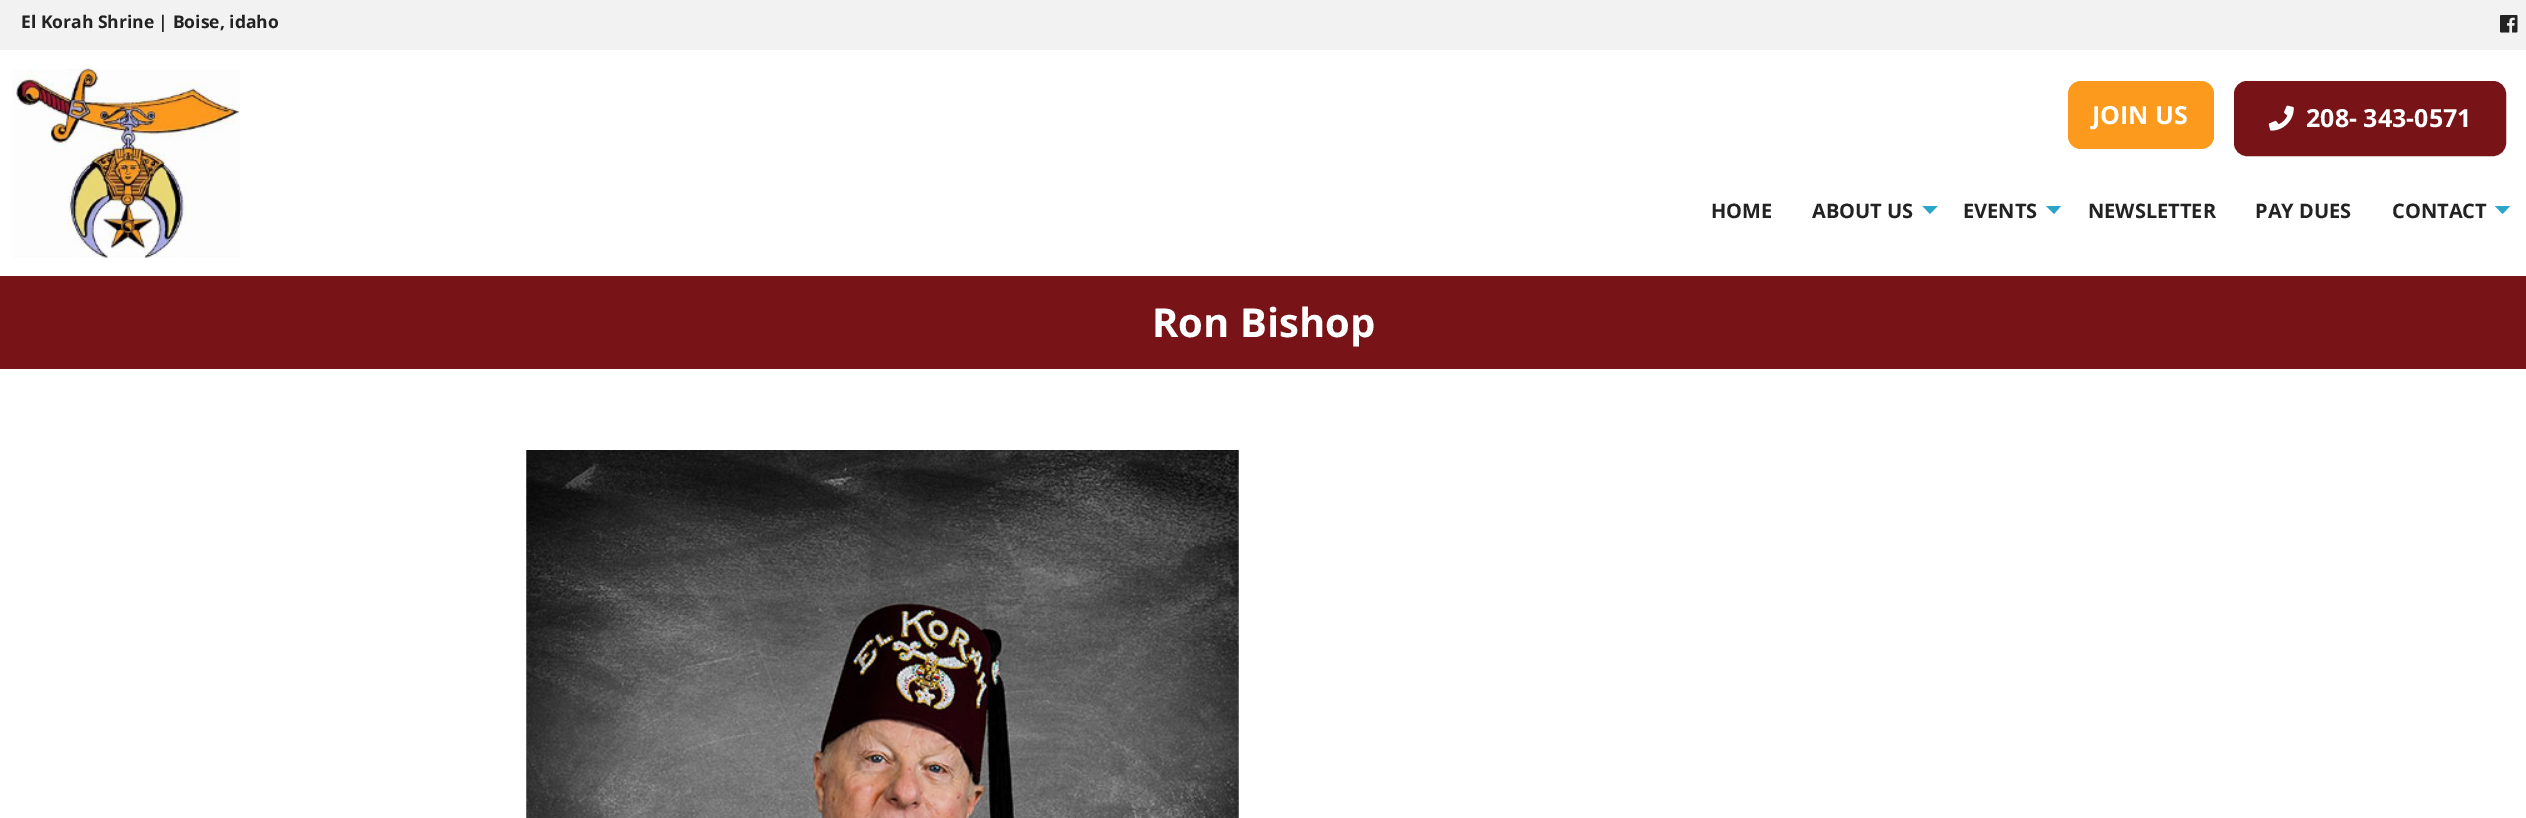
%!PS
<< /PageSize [2526 818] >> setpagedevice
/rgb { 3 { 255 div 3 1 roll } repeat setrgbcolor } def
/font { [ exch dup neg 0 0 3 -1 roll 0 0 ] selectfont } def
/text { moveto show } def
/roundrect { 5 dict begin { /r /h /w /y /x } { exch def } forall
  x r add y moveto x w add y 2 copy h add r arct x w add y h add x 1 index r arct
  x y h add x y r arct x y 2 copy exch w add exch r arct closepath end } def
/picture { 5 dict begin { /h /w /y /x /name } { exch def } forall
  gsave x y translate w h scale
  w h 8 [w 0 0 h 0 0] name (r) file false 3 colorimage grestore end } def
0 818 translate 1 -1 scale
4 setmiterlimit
255 255 255 rgb
0 0 2526 818 rectfill
242 242 242 rgb
0 0 2526 50 rectfill
(img_01.rgb) 2500 15 18 18 picture
(img_02.rgb) 12 68 228 190 picture
252 154 30 rgb
2068 81 146 68 13 roundrect fill
120 20 23 rgb
2236 83 268 71 11 roundrect gsave fill grestore
4 setlinewidth
stroke
(img_03.rgb) 2268 105 26 26 picture
43 166 203 rgb
1922.5 206 moveto 15 0 rlineto -7.5 8 rlineto closepath fill
2046 206 moveto 15 0 rlineto -7 8 rlineto closepath fill
2495 206 moveto 15 0 rlineto -7.5 8 rlineto closepath fill
120 20 23 rgb
0 276 2526 93 rectfill
(img_04.rgb) 526 450 713 368 picture
/OpenSans-Bold 17.5 font
34 34 34 rgb
(El Korah Shrine | Boise, idaho) 21 28 text
/OpenSans-Bold 25 font
255 255 255 rgb
(JOIN US) 2092 124 text
(208- 343-0571) 2306 127 text
/OpenSans-Bold 20 font
34 34 34 rgb
(HOME) 1711 218 text
(ABOUT US) 1812 218 text
(EVENTS) 1963 218 text
(NEWSLETTER) 2088 218 text
(PAY DUES) 2255 218 text
(CONTACT) 2392 218 text
/OpenSans-Bold 40 font
255 255 255 rgb
(Ron Bishop) 1152 337 text
showpage
